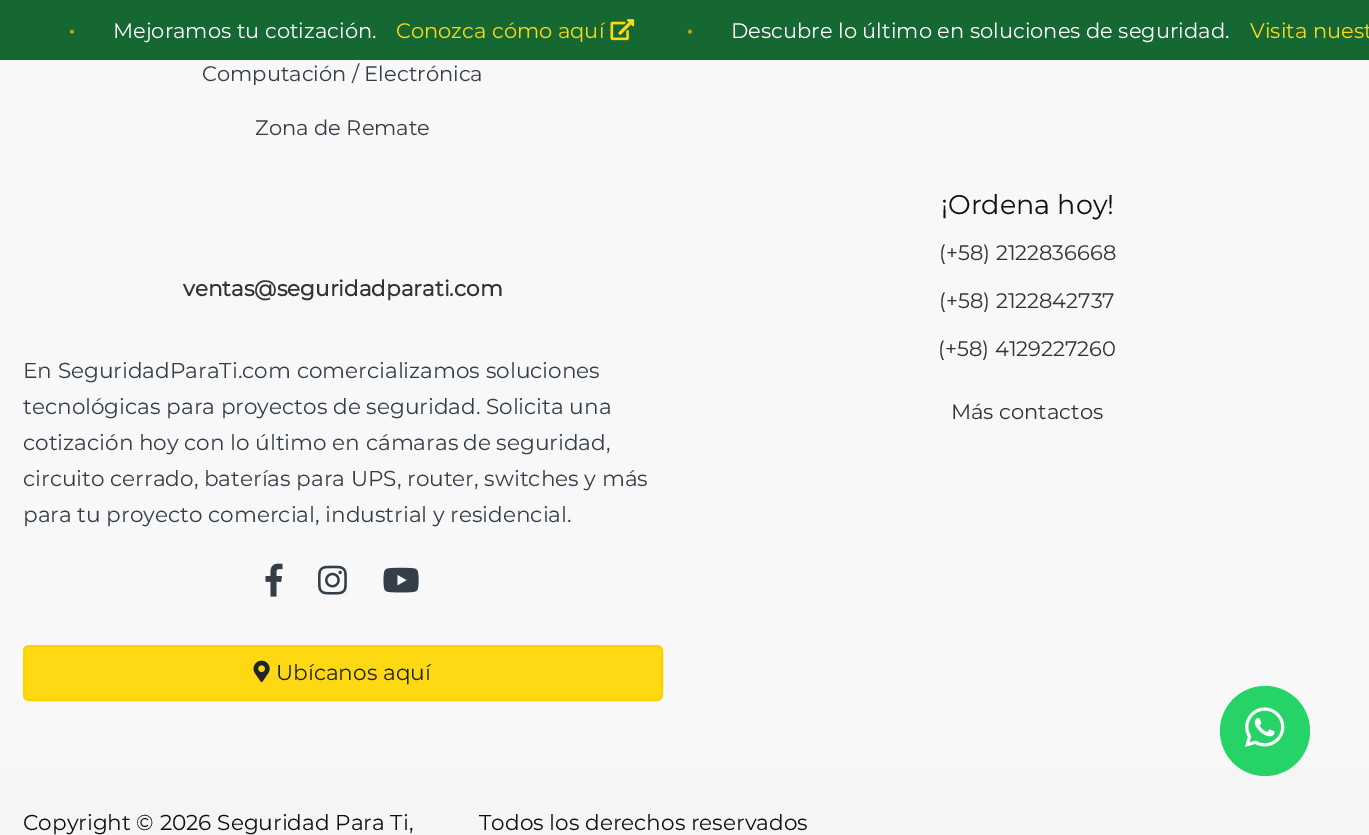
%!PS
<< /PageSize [1369 835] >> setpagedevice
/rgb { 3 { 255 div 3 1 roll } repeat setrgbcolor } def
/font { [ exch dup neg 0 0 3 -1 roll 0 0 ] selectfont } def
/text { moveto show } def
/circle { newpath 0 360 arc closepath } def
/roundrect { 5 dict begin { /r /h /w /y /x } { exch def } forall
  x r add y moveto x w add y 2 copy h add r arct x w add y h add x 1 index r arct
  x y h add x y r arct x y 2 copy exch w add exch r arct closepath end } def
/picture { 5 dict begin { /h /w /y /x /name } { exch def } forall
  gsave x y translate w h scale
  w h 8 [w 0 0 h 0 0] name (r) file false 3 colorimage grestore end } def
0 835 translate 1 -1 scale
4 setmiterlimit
248 248 248 rgb
0 0 1369 835 rectfill
21 104 49 rgb
0 0 1369 60 rectfill
(img_01.rgb) 610 19 25 22 picture
(img_02.rgb) 265 563 18 34 picture
(img_03.rgb) 318 565 29 30 picture
(img_04.rgb) 383 567 36 26 picture
255 216 20 rgb
24 646 638 54 5 roundrect gsave fill grestore
252 210 0 rgb
2 setlinewidth
stroke
(img_05.rgb) 253 660 17 23 picture
245 245 245 rgb
0 768 1369 67 rectfill
37 211 102 rgb
1265 731 45 circle fill
(img_06.rgb) 1245 707 40 40 picture
/Montserrat-Regular 27 font
203 162 0 rgb
(•) 68 39 text
/Montserrat-Regular 21 font
255 255 255 rgb
(Mejoramos tu cotización.) 113 38 text
255 216 20 rgb
(Conozca cómo aquí) 396 38 text
/Montserrat-Regular 27 font
203 162 0 rgb
(•) 686 39 text
/Montserrat-Regular 21 font
255 255 255 rgb
(Descubre lo último en soluciones de seguridad.) 731 38 text
255 216 20 rgb
(Visita nuest) 1250 38 text
51 62 72 rgb
(Computación / Electrónica) 202 81 text
(Zona de Remate) 255 135 text
/Montserrat-Bold 21.6 font
51 51 51 rgb
(ventas@seguridadparati.com) 183 296 text
/Montserrat-Regular 21.6 font
51 62 72 rgb
(En SeguridadParaTi.com comercializamos soluciones) 23 378 text
(tecnológicas para proyectos de seguridad. Solicita una) 23 414 text
(cotización hoy con lo último en cámaras) 23 450 text
(de seguridad,) 463 450 text
(circuito cerrado, baterías para UPS, router, switches y más) 23 486 text
(para tu proyecto comercial, industrial y residencial.) 23 522 text
33 37 41 rgb
(Ubícanos aquí) 276 680 text
/Montserrat-Regular 27 font
15 17 17 rgb
(¡Ordena hoy!) 941 214 text
/Montserrat-Regular 21 font
51 51 51 rgb
(\(+58\) 2122836668) 939 260 text
(\(+58\) 2122842737) 939 308 text
(\(+58\) 4129227260) 938 356 text
(Más contactos) 951 419 text
/Montserrat-Regular 21.6 font
15 17 17 rgb
(Copyright © 2026 Seguridad Para Ti,) 23 830 text
(Todos los derechos reservados) 479 830 text
showpage
